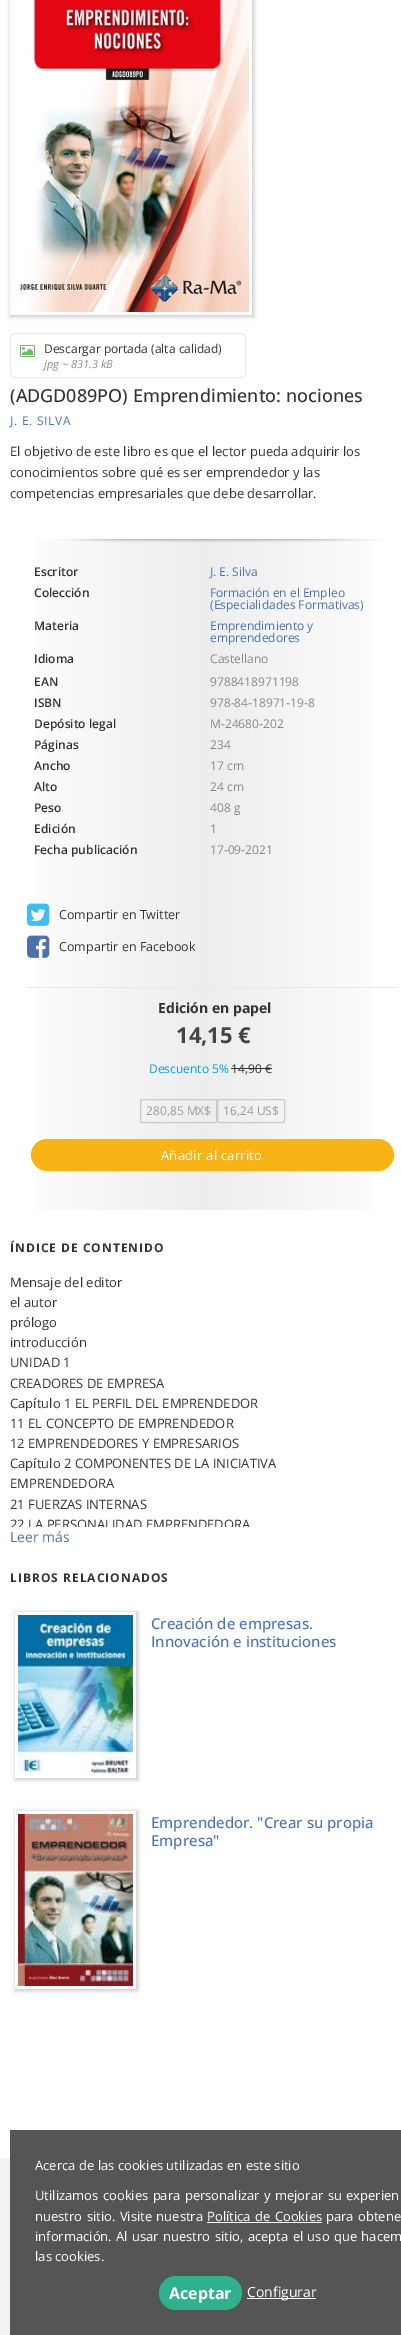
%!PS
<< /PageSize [401 2335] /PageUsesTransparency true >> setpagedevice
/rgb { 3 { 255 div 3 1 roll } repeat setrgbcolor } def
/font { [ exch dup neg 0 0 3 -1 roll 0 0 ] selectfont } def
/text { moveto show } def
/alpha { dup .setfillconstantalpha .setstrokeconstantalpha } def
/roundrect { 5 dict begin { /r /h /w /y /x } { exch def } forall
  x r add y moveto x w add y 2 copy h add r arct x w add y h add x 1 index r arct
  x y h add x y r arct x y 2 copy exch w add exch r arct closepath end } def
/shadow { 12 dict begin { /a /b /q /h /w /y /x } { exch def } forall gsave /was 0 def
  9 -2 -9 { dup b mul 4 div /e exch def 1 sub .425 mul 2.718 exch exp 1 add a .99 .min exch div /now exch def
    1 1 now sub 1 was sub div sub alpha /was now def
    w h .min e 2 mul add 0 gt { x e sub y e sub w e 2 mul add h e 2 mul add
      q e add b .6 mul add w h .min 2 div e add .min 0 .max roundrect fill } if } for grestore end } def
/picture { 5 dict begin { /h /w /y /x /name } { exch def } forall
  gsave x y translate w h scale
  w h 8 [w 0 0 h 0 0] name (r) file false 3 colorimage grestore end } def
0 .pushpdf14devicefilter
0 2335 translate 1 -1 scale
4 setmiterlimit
255 255 255 rgb
0 0 401 2335 rectfill
gsave
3 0 moveto 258 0 rlineto 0 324 rlineto -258 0 rlineto closepath 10 -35 moveto 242 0 rlineto 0 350 rlineto -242 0 rlineto closepath eoclip newpath
0 0 0 rgb
10 -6 244 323 0 2 0.2 shadow
grestore
(img_01.rgb) 14 0 235 312 picture
234 234 234 rgb
10.5 333.5 235 44 4.5 roundrect stroke
(img_02.rgb) 20 345 15 12 picture
gsave 37 539 moveto 334 0 rlineto 0 671 rlineto -334 0 rlineto closepath clip newpath
<< /ShadingType 2 /ColorSpace /DeviceRGB /Coords [10 875 398 875] /Extend [true true] /Function << /FunctionType 3 /Domain [0 1] /Functions [<< /FunctionType 2 /Domain [0 1] /C0 [1 1 1] /C1 [0.929 0.929 0.929] /N 1 >> << /FunctionType 2 /Domain [0 1] /C0 [0.929 0.929 0.929] /C1 [1 1 1] /N 1 >>] /Bounds [0.5] /Encode [0 1 0 1] >> >> shfill grestore
(img_03.rgb) 53 539 328 4 picture
(img_04.rgb) 27 903 23 23 picture
(img_05.rgb) 27 935 23 23 picture
232 232 232 rgb
27 987 371 1 rectfill
51 51 51 rgb
231 1068 41 1 rectfill
201 201 201 rgb
140.5 1099.5 76 23 1.5 roundrect stroke
217.5 1099.5 67 23 1.5 roundrect stroke
248 180 22 rgb
31.5 1139.5 362 31 15.5 roundrect gsave fill grestore
stroke
gsave
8 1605 moveto 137 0 rlineto 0 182 rlineto -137 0 rlineto closepath 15 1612 moveto 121 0 rlineto 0 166 rlineto -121 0 rlineto closepath eoclip newpath
0 0 0 rgb
15 1612 123 168 0 2 0.2 shadow
grestore
(img_06.rgb) 18 1615 115 160 picture
gsave
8 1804 moveto 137 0 rlineto 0 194 rlineto -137 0 rlineto closepath 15 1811 moveto 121 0 rlineto 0 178 rlineto -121 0 rlineto closepath eoclip newpath
0 0 0 rgb
15 1811 123 180 0 2 0.2 shadow
grestore
(img_07.rgb) 18 1814 115 172 picture
242 242 242 rgb
0 2158 10 177 rectfill
85 85 85 rgb
10 2130 391 205 rectfill
255 255 255 rgb
207 2222 115 1 rectfill
47 177 141 rgb
159 2276 83 34 17 roundrect fill
255 255 255 rgb
247 2298 69 1 rectfill
/OpenSans-Regular 12 font
51 51 51 rgb
(Descargar portada \(alta calidad\)) 44 353 text
/OpenSans-Italic 11 font
136 136 136 rgb
(jpg ~ 831.3 kB) 44 368 text
/OpenSans-Medium 18 font
51 51 51 rgb
(\(ADGD089PO\) Emprendimiento: nociones) 10 402 text
/OpenSans-Regular 12 font
74 114 176 rgb
10 425 moveto 0.75 0 (J. E. SILVA) ashow
/OpenSans-Regular 13 font
51 51 51 rgb
(El objetivo de este libro es que el lector pueda adquirir los) 10 456 text
(conocimientos sobre qué es ser emprendedor y las) 10 477 text
(competencias empresariales que debe desarrollar.) 10 498 text
/OpenSans-SemiBold 12 font
(Escritor) 34 576 text
/OpenSans-Regular 12 font
74 114 176 rgb
(J. E. Silva) 210 576 text
/OpenSans-SemiBold 12 font
51 51 51 rgb
(Colección) 34 597 text
/OpenSans-Regular 12 font
74 114 176 rgb
(Formación en el Empleo) 210 597 text
(\(Especialidades Formativas\)) 210 609 text
/OpenSans-SemiBold 12 font
51 51 51 rgb
(Materia) 34 630 text
/OpenSans-Regular 12 font
74 114 176 rgb
(Emprendimiento y) 210 630 text
(emprendedores) 210 642 text
/OpenSans-SemiBold 12 font
51 51 51 rgb
(Idioma) 34 663 text
/OpenSans-Regular 12 font
136 136 136 rgb
(Castellano) 210 663 text
/OpenSans-SemiBold 12 font
51 51 51 rgb
(EAN) 34 686 text
/OpenSans-Regular 12 font
136 136 136 rgb
(9788418971198) 210 686 text
/OpenSans-SemiBold 12 font
51 51 51 rgb
(ISBN) 34 707 text
/OpenSans-Regular 12 font
136 136 136 rgb
(978-84-18971-19-8) 210 707 text
/OpenSans-SemiBold 12 font
51 51 51 rgb
(Depósito legal) 34 728 text
/OpenSans-Regular 12 font
136 136 136 rgb
(M-24680-202) 210 728 text
/OpenSans-SemiBold 12 font
51 51 51 rgb
(Páginas) 34 749 text
/OpenSans-Regular 12 font
136 136 136 rgb
(234) 210 749 text
/OpenSans-SemiBold 12 font
51 51 51 rgb
(Ancho) 34 770 text
/OpenSans-Regular 12 font
136 136 136 rgb
(17 cm) 210 770 text
/OpenSans-SemiBold 12 font
51 51 51 rgb
(Alto) 34 791 text
/OpenSans-Regular 12 font
136 136 136 rgb
(24 cm) 210 791 text
/OpenSans-SemiBold 12 font
51 51 51 rgb
(Peso) 34 812 text
/OpenSans-Regular 12 font
136 136 136 rgb
(408 g) 210 812 text
/OpenSans-SemiBold 12 font
51 51 51 rgb
(Edición) 34 833 text
/OpenSans-Regular 12 font
136 136 136 rgb
(1) 210 833 text
/OpenSans-SemiBold 12 font
51 51 51 rgb
(Fecha publicación) 34 854 text
/OpenSans-Regular 12 font
136 136 136 rgb
(17-09-2021) 210 854 text
/OpenSans-Regular 12.5 font
51 51 51 rgb
(Compartir en Twitter) 59 919 text
(Compartir en Facebook) 59 951 text
/OpenSans-Bold 14 font
(Edición en papel) 158 1013 text
/OpenSans-Bold 22 font
68 68 68 rgb
(14,15 €) 176 1043 text
/OpenSans-Regular 12 font
0 158 232 rgb
(Descuento 5%) 149 1073 text
51 51 51 rgb
(14,90 €) 231 1073 text
153 153 153 rgb
(280,85 MX$) 146 1115 text
(16,24 US$) 223 1115 text
/OpenSans-Regular 13 font
255 255 255 rgb
161 1160 moveto 0.25 0 (Añadir al carrito) ashow
/OpenSans-Bold 12 font
51 51 51 rgb
10 1252 moveto 1 0 (ÍNDICE DE CONTENIDO) ashow
/OpenSans-Regular 13 font
(Mensaje del editor) 10 1287 text
(el autor) 10 1307 text
(prólogo) 10 1327 text
(introducción) 10 1347 text
(UNIDAD 1) 10 1367 text
(CREADORES DE EMPRESA) 10 1388 text
(Capítulo 1 EL PERFIL DEL EMPRENDEDOR) 10 1408 text
(11 EL CONCEPTO DE EMPRENDEDOR) 10 1428 text
(12 EMPRENDEDORES Y EMPRESARIOS) 10 1448 text
(Capítulo 2 COMPONENTES DE LA INICIATIVA) 10 1468 text
(EMPRENDEDORA) 10 1488 text
(21 FUERZAS INTERNAS) 10 1509 text
gsave
10 1272 371 255 rectclip
(22 LA PERSONALIDAD EMPRENDEDORA) 10 1529 text
grestore
/OpenSans-Regular 14 font
74 114 176 rgb
(Leer más) 10 1542 text
/OpenSans-Bold 12 font
51 51 51 rgb
10 1582 moveto 1 0 (LIBROS RELACIONADOS) ashow
/OpenSans-Medium 15 font
74 114 176 rgb
(Creación de empresas.) 151 1629 text
(Innovación e instituciones) 151 1647 text
(Emprendedor. "Crear su propia) 151 1828 text
(Empresa") 151 1846 text
/OpenSans-Regular 13 font
255 255 255 rgb
(Acerca de las cookies utilizadas en este sitio) 35 2170 text
35 2200 moveto 1 0 32 (Utilizamos cookies para personalizar y mejorar su experien) widthshow
35 2221 moveto 1 0 32 (nuestro sitio. Visite nuestra) widthshow
207 2221 moveto 1 0 32 (Política de Cookies) widthshow
326 2221 moveto 1 0 32 (para obtene) widthshow
35 2241 moveto 1 0 32 (información. Al usar nuestro sitio, acepta el uso que hacem) widthshow
(las cookies.) 35 2261 text
/OpenSans-Bold 16 font
(Aceptar) 169 2299 text
/OpenSans-Regular 14 font
(Configurar) 247 2297 text
.poppdf14devicefilter showpage
